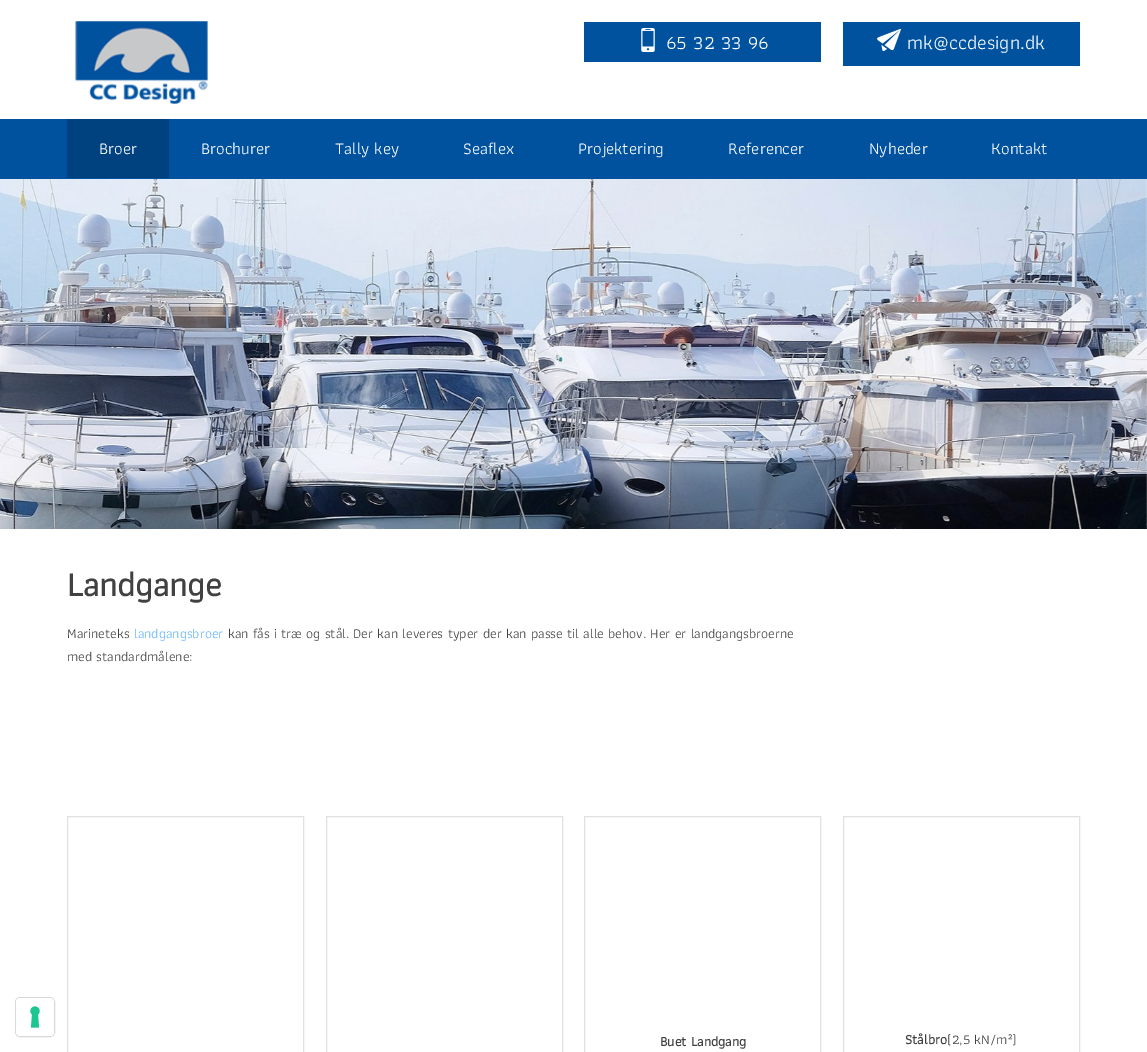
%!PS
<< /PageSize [1147 1052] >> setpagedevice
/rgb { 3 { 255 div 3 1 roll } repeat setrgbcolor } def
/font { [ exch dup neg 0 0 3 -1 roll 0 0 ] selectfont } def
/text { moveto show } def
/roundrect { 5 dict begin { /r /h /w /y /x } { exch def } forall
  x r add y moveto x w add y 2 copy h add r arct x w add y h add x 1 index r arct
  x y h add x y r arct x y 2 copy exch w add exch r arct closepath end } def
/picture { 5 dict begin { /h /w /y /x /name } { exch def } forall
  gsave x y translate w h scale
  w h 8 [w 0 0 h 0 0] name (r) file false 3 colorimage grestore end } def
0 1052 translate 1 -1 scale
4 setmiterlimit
255 255 255 rgb
0 0 1147 1052 rectfill
217 217 217 rgb
15.5 997.5 39 39 4.5 roundrect stroke
255 255 255 rgb
16 998 38 38 4 roundrect fill
(img_01.rgb) 30 1006 10 22 picture
(img_02.rgb) 75 21 133 83 picture
0 82 159 rgb
584 22 237 40 rectfill
(img_03.rgb) 641 28 14 24 picture
843 22 237 44 rectfill
(img_04.rgb) 877 28 24 23 picture
0 119 1147 60 rectfill
0 66 127 rgb
67 119 102 59 rectfill
(img_05.rgb) 0 179 1147 350 picture
225 225 225 rgb
67.5 816.5 236 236 rectstroke
326.5 816.5 236 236 rectstroke
584.5 816.5 236 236 rectstroke
843.5 816.5 236 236 rectstroke
/Athiti-Regular 20 font
255 255 255 rgb
(65 32 33 96) 666 49 text
(mk@ccdesign.dk) 907 49 text
/Athiti-Regular 17 font
(Broer) 99 154 text
(Brochurer) 201 154 text
(Tally key) 335 154 text
(Seaflex) 463 154 text
(Projektering) 578 154 text
(Referencer) 728 154 text
(Nyheder) 869 154 text
(Kontakt) 991 154 text
/Athiti-Bold 35 font
65 65 65 rgb
(Landgange) 67 596 text
/Athiti-Regular 14 font
(Marineteks) 67 638 text
101 181 255 rgb
(landgangsbroer) 134 638 text
65 65 65 rgb
(kan fås i træ og stål. Der kan leveres typer der kan passe til alle behov. Her er landgangsbroerne) 228 638 text
(med standardmålene:) 67 661 text
/Athiti-Bold 14 font
(Buet Landgang) 660 1046 text
(Stålbro) 905 1044 text
/Athiti-Regular 14 font
(\(2,5 kN/m²\)) 947 1044 text
showpage
